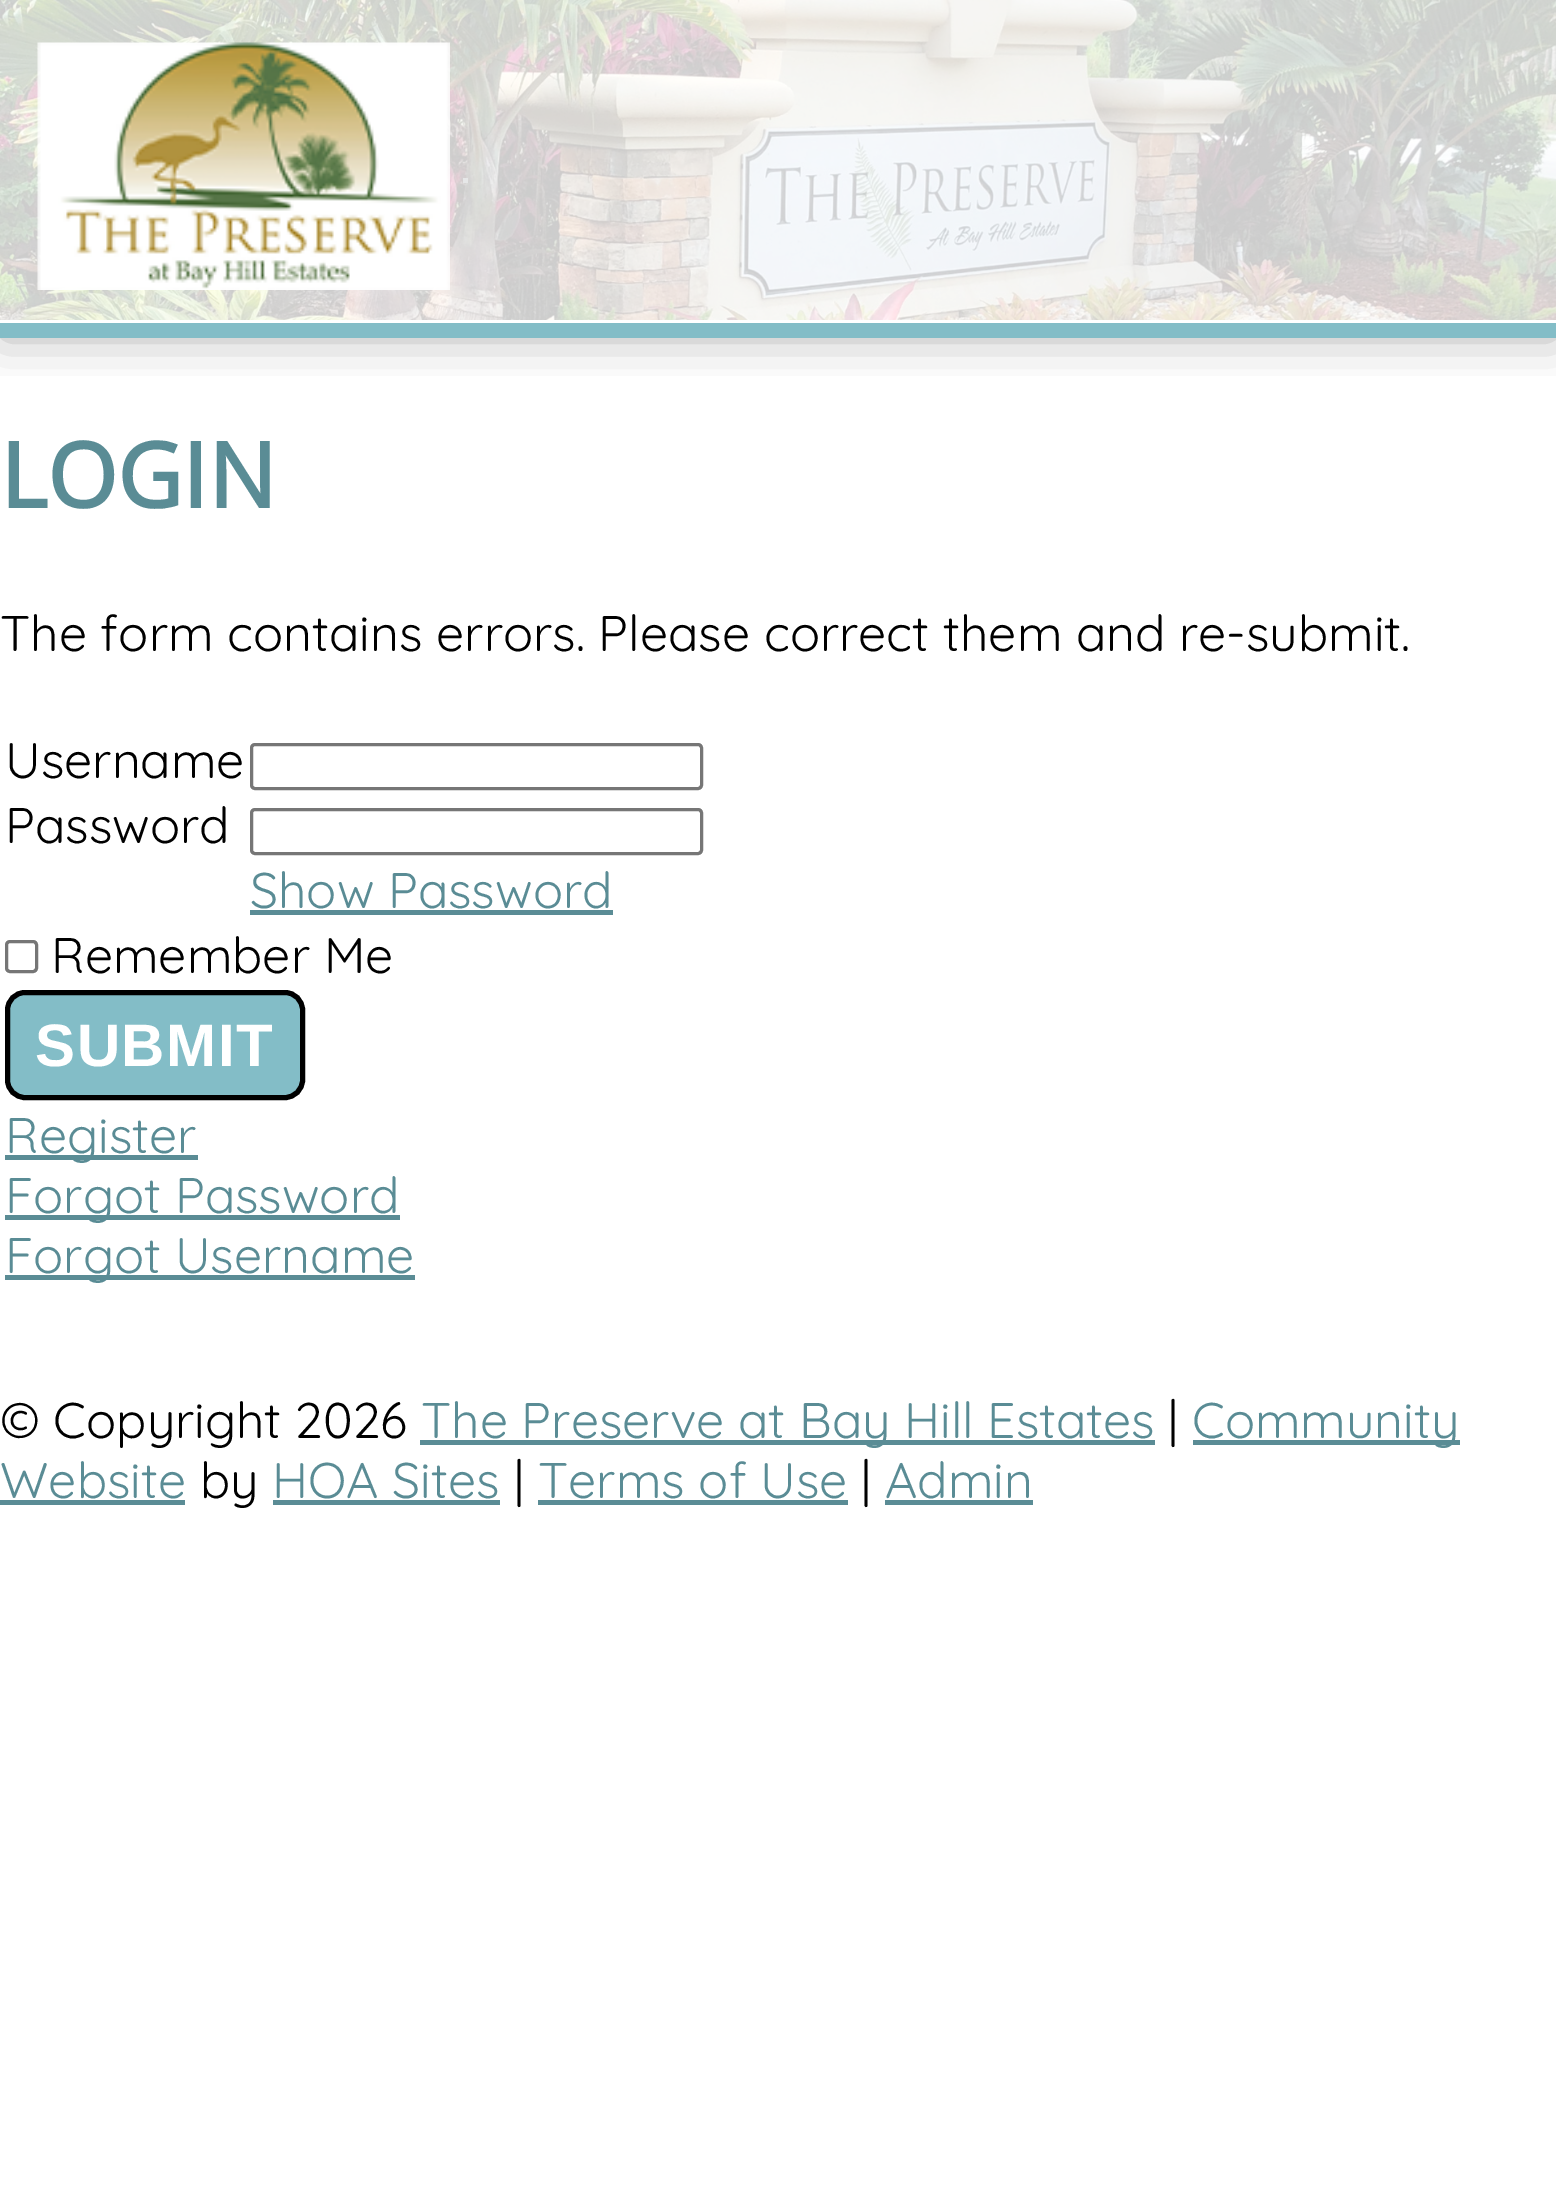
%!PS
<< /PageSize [1556 2204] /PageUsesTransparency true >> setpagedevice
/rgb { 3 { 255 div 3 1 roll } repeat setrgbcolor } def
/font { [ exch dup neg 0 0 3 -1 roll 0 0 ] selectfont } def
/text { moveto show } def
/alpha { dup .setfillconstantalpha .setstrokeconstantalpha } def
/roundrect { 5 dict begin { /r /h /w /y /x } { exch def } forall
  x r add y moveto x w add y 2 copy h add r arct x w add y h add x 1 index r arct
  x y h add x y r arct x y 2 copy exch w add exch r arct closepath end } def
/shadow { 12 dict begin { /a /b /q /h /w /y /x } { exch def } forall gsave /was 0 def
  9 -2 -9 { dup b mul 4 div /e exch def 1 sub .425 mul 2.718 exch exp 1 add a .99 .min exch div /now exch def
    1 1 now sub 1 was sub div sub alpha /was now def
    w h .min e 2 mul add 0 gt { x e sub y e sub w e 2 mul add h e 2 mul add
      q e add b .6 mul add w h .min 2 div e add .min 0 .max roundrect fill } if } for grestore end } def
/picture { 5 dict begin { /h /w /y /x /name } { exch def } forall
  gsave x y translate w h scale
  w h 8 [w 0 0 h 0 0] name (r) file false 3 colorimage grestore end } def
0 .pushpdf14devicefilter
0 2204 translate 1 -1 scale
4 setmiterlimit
255 255 255 rgb
0 0 1556 2204 rectfill
(img_01.rgb) 0 0 1556 320 picture
gsave
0 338 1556 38 rectclip
0 0 0 rgb
0 0 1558 338 0 25 0.3 shadow
grestore
0.8 alpha
0 0 1556 320 rectfill
1 alpha
131 189 199 rgb
0 323 1556 15 rectfill
(img_02.rgb) 37 42 413 248 picture
230 231 232 rgb
463 178 5 5 rectfill
118 118 118 rgb
3 setlinewidth
251.5 744.5 450 44 3.5 roundrect stroke
251.5 809.5 450 44 3.5 roundrect stroke
90 140 149 rgb
250 910 363 5 rectfill
118 118 118 rgb
6.5 941.5 30 30 3.5 roundrect stroke
131 189 199 rgb
7.5 992.5 295 105 17.5 roundrect gsave fill grestore
0 0 0 rgb
5 setlinewidth
stroke
90 140 149 rgb
5 1155 193 5 rectfill
5 1215 395 5 rectfill
5 1275 410 5 rectfill
420 1440 735 5 rectfill
1193 1440 267 5 rectfill
0 1500 185 5 rectfill
273 1500 227 5 rectfill
538 1500 310 5 rectfill
885 1500 148 5 rectfill
/OpenSans-Bold 90 font
(LOGIN) 0 508 text
/Quicksand-Light 50 font
0 0 0 rgb
(The form contains errors. Please correct them and re-submit.) 0 651 text
(Username) 5 778 text
(Password) 5 843 text
90 140 149 rgb
(Show Password) 250 908 text
0 0 0 rgb
(Remember Me) 51 973 text
/LiberationSans-Bold 60 font
255 255 255 rgb
35 1066 moveto 1.5 0 (SUBMIT) ashow
/Quicksand-Light 50 font
90 140 149 rgb
(Register) 5 1153 text
(Forgot Password) 5 1213 text
(Forgot Username) 5 1273 text
0 0 0 rgb
(© Copyright 2026) 0 1438 text
90 140 149 rgb
(The Preserve at Bay Hill Estates) 421 1438 text
0 0 0 rgb
(|) 1168 1438 text
90 140 149 rgb
(Community) 1192 1438 text
(Website) 0 1498 text
0 0 0 rgb
(by) 200 1498 text
90 140 149 rgb
(HOA Sites) 272 1498 text
0 0 0 rgb
(|) 514 1498 text
90 140 149 rgb
(Terms of Use) 538 1498 text
0 0 0 rgb
(|) 861 1498 text
90 140 149 rgb
(Admin) 885 1498 text
.poppdf14devicefilter showpage
